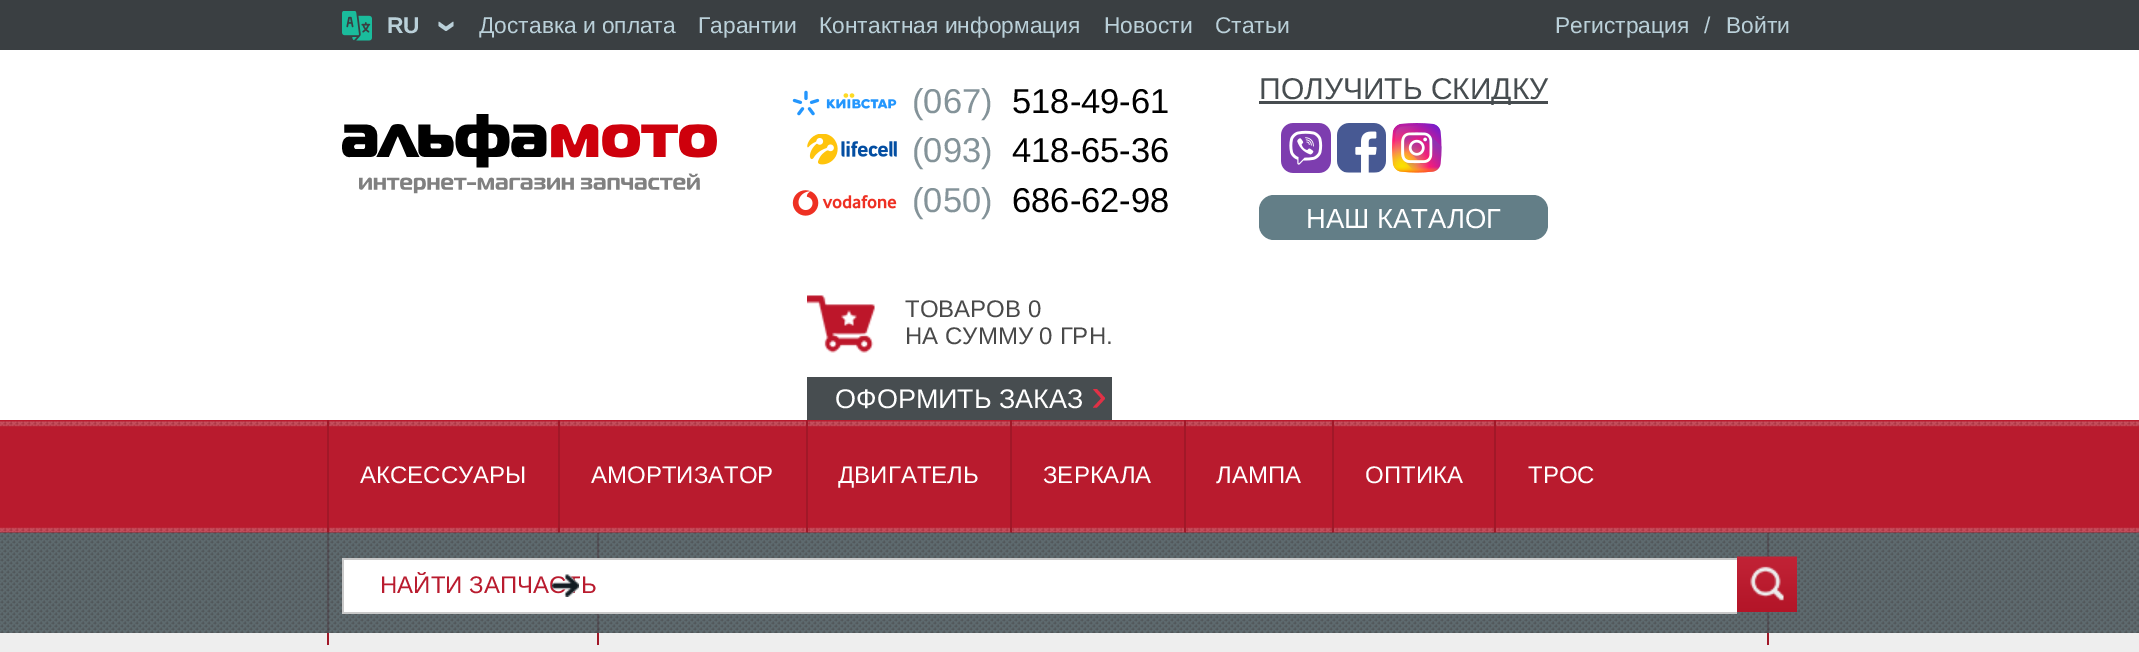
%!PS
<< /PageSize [2139 652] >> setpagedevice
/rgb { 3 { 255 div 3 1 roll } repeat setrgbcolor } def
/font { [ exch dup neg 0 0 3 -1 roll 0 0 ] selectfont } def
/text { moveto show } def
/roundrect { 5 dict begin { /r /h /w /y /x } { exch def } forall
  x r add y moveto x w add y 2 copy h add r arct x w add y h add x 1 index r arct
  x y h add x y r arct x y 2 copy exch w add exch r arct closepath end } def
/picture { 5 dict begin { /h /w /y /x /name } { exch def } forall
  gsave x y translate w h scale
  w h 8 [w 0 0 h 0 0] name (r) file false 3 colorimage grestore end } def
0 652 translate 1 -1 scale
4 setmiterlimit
255 255 255 rgb
0 0 2139 652 rectfill
58 63 66 rgb
0 0 2139 50 rectfill
(img_01.rgb) 342 11 30 30 picture
(img_02.rgb) 342 114 375 80 picture
(img_03.rgb) 792 90 105 26 picture
(img_04.rgb) 807 134 90 31 picture
(img_05.rgb) 792 190 105 26 picture
71 77 80 rgb
1259 101 289 3 rectfill
(img_06.rgb) 1281 123 50 50 picture
(img_07.rgb) 1337 123 49 50 picture
(img_08.rgb) 1392 123 50 50 picture
99 126 135 rgb
1259 195 289 45 15 roundrect fill
(img_09.rgb) 807 295 68 58 picture
71 77 80 rgb
807 377 305 43 rectfill
185 27 46 rgb
0 420 2139 113 rectfill
(img_10.rgb) 0 421 2139 112 picture
238 238 238 rgb
0 633 2139 19 rectfill
161 24 40 rgb
327 420 2 225 rectfill
558 420 2 113 rectfill
806 420 2 113 rectfill
1010 420 2 113 rectfill
1184 420 2 113 rectfill
1332 420 2 113 rectfill
1494 420 2 113 rectfill
597 533 2 112 rectfill
1767 533 2 112 rectfill
(img_11.rgb) 0 532 2139 101 picture
255 255 255 rgb
344 560 1393 52 rectfill
201 201 201 rgb
342 558 1395 2 rectfill
342 612 1395 2 rectfill
342 558 2 56 rectfill
(img_13.rgb) 1737 556 60 56 picture
/LiberationSans-Bold 22.75 font
186 208 217 rgb
(RU) 387 33 text
/LiberationSans-Bold 38 font
gsave 436 20 translate 90 rotate 0 0 moveto (›) show grestore
/LiberationSans-Regular 22.75 font
(Доставка и оплата) 479 33 text
(Гарантии) 698 33 text
(Контактная информация) 819 33 text
(Новости) 1104 33 text
(Статьи) 1215 33 text
(Регистрация) 1555 33 text
(/) 1704 33 text
(Войти) 1726 33 text
/LiberationSans-Regular 34.5 font
132 147 153 rgb
(\(067\)) 912 113 text
0 0 0 rgb
(518-49-61) 1012 113 text
132 147 153 rgb
(\(093\)) 912 162 text
0 0 0 rgb
(418-65-36) 1012 162 text
132 147 153 rgb
(\(050\)) 912 212 text
0 0 0 rgb
(686-62-98) 1012 212 text
/LiberationSans-Regular 30 font
71 77 80 rgb
(ПОЛУЧИТЬ СКИДКУ) 1259 99 text
/LiberationSans-Regular 27.5 font
255 255 255 rgb
(НАШ КАТАЛОГ) 1306 228 text
/LiberationSans-Regular 24 font
73 73 73 rgb
(ТОВАРОВ 0) 905 317 text
(НА СУММУ 0 ГРН.) 905 344 text
/LiberationSans-Regular 27 font
255 255 255 rgb
(ОФОРМИТЬ ЗАКАЗ) 835 408 text
/LiberationSans-Regular 48 font
225 49 70 rgb
(›) 1091 411 text
/LiberationSans-Regular 24 font
255 255 255 rgb
(АКСЕССУАРЫ) 360 483 text
(АМОРТИЗАТОР) 591 483 text
(ДВИГАТЕЛЬ) 838 483 text
(ЗЕРКАЛА) 1043 483 text
(ЛАМПА) 1216 483 text
(ОПТИКА) 1365 483 text
(ТРОС) 1528 483 text
gsave
374 572 1360 27 rectclip
185 27 46 rgb
(НАЙТИ ЗАПЧАСТЬ) 380 593 text
grestore
(img_12.rgb) 552 574 27 23 picture
showpage
